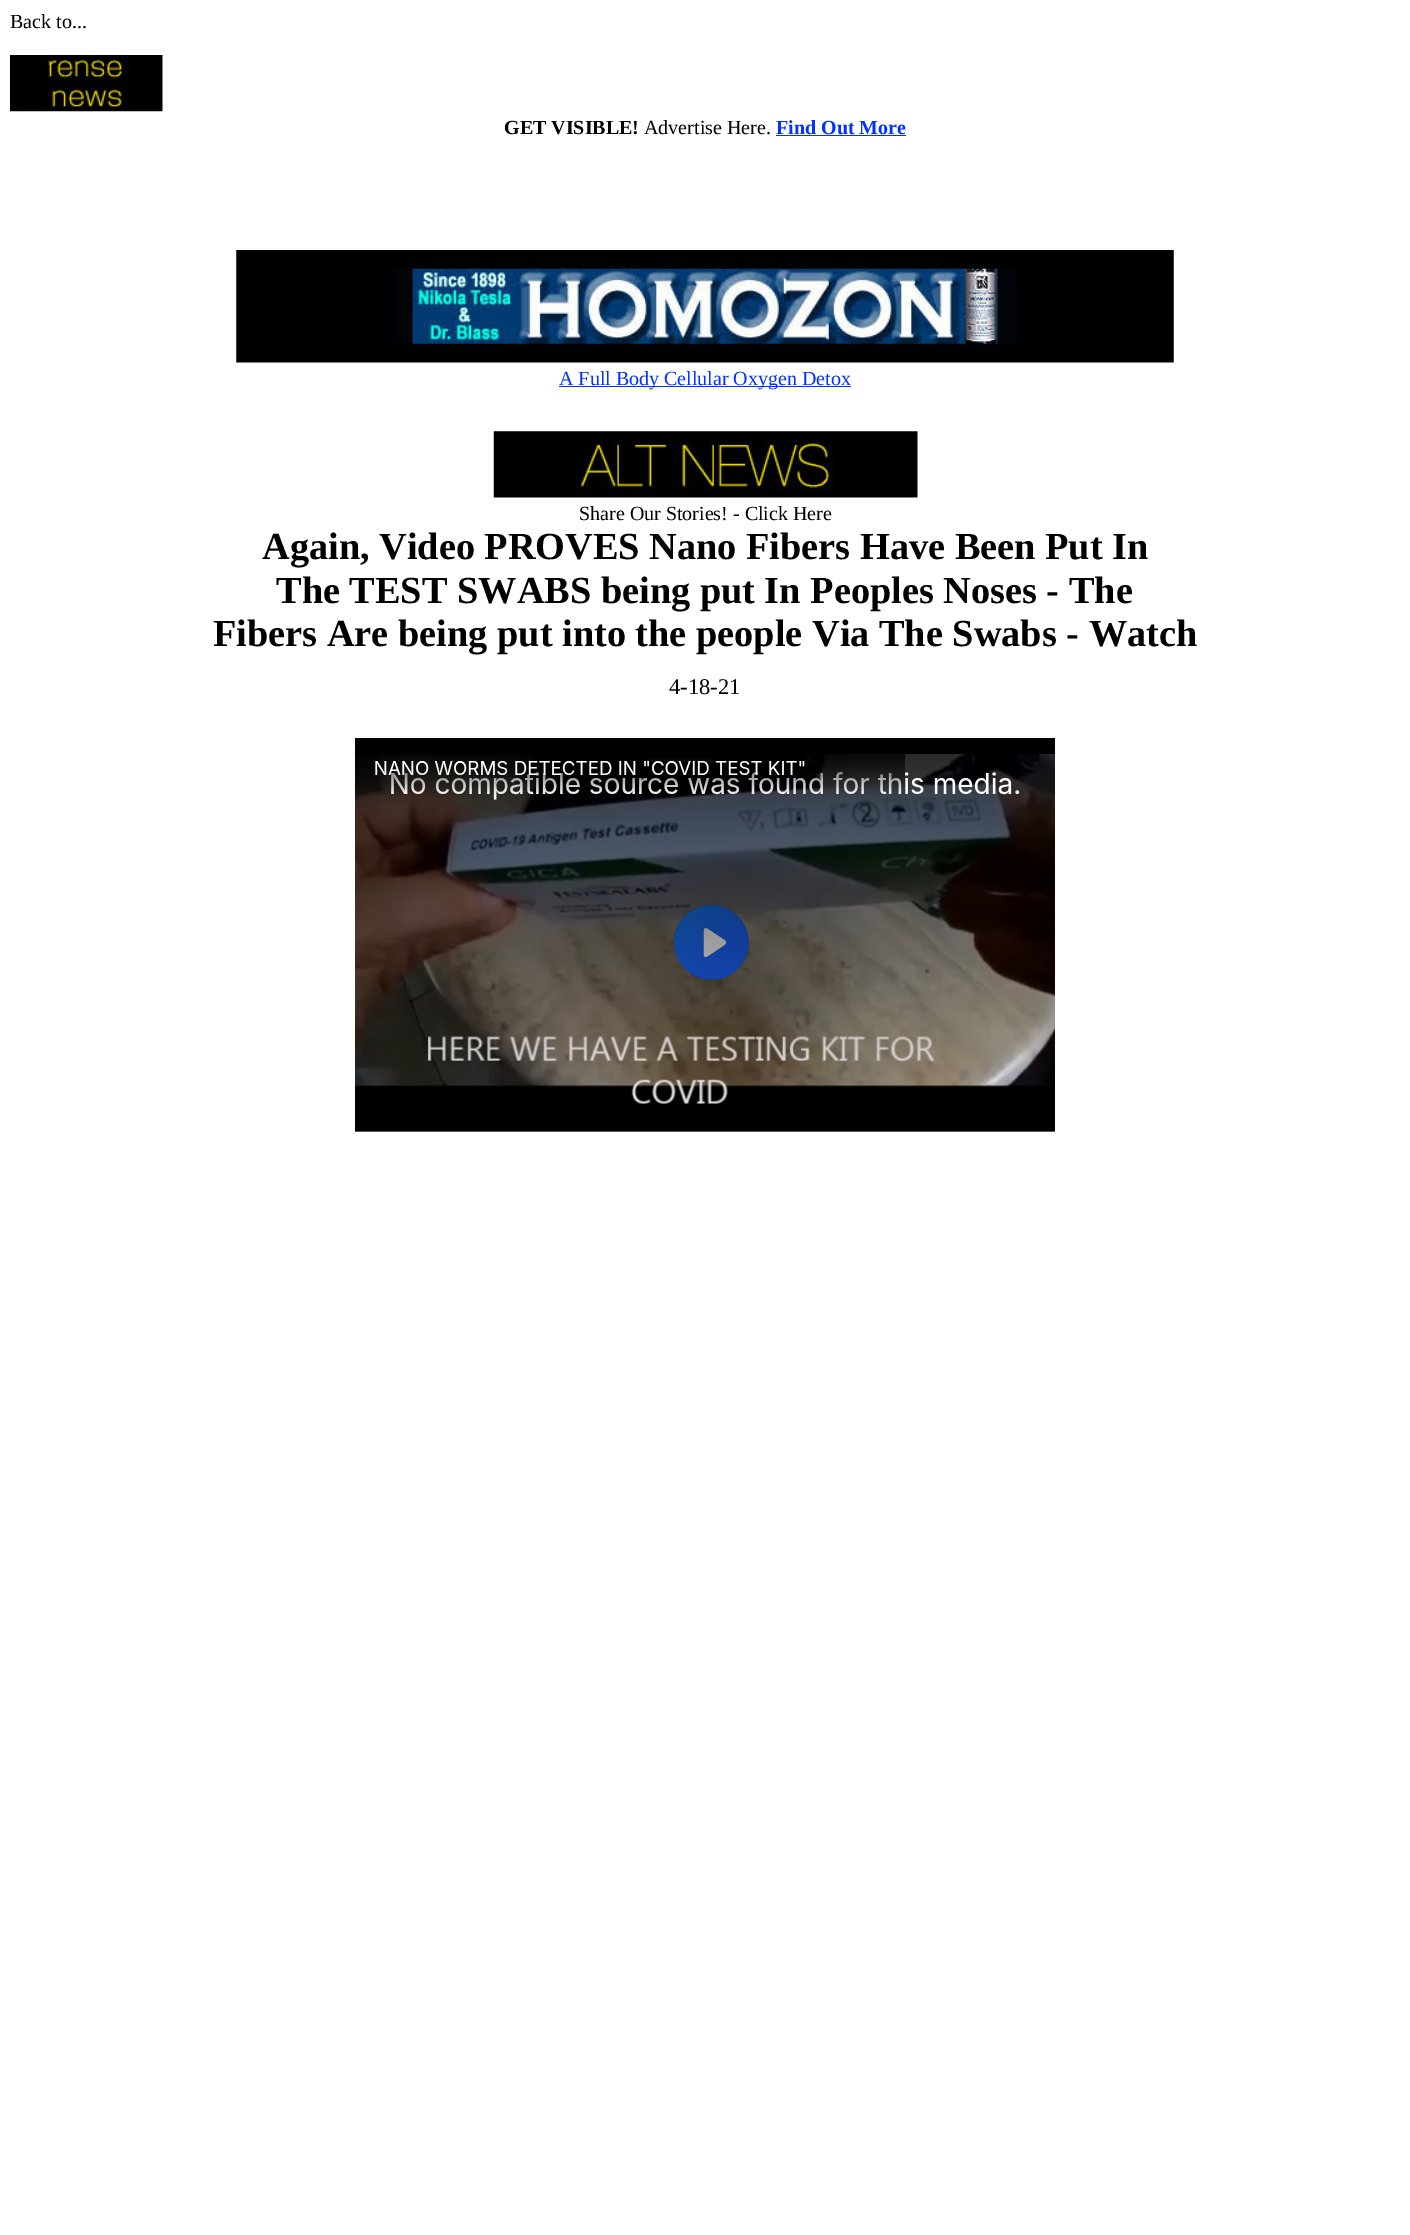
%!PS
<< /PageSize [1410 2235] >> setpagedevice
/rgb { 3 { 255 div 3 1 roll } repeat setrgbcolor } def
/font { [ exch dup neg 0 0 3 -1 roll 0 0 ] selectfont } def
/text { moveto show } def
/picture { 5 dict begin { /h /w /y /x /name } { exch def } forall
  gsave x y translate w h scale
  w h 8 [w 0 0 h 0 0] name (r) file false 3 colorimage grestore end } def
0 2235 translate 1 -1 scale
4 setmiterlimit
255 255 255 rgb
0 0 1410 2235 rectfill
(img_01.rgb) 10 55 153 57 picture
0 51 255 rgb
776 135 130 1 rectfill
(img_02.rgb) 236 250 938 113 picture
559 386 292 1 rectfill
(img_03.rgb) 493 431 425 67 picture
(img_04.rgb) 355 738 700 394 picture
/LiberationSerif-Regular 20 font
0 0 0 rgb
(Back to...) 10 28 text
/LiberationSerif-Bold 20 font
(GET VISIBLE!) 504 134 text
/LiberationSerif-Regular 20 font
(Advertise Here.) 644 134 text
/LiberationSerif-Bold 20 font
0 51 255 rgb
(Find Out More) 776 134 text
/LiberationSerif-Regular 20 font
(A Full Body Cellular Oxygen Detox) 559 385 text
0 0 0 rgb
(Share Our Stories! - Click Here) 579 520 text
/LiberationSerif-Bold 38.3 font
(Again, Video PROVES Nano Fibers Have Been Put In) 262 559 text
(The TEST SWABS being put In Peoples Noses - The) 276 603 text
(Fibers Are being put into the people Via The Swabs - Watch) 213 646 text
/LiberationSerif-Regular 22.5 font
(4-18-21) 669 694 text
showpage
